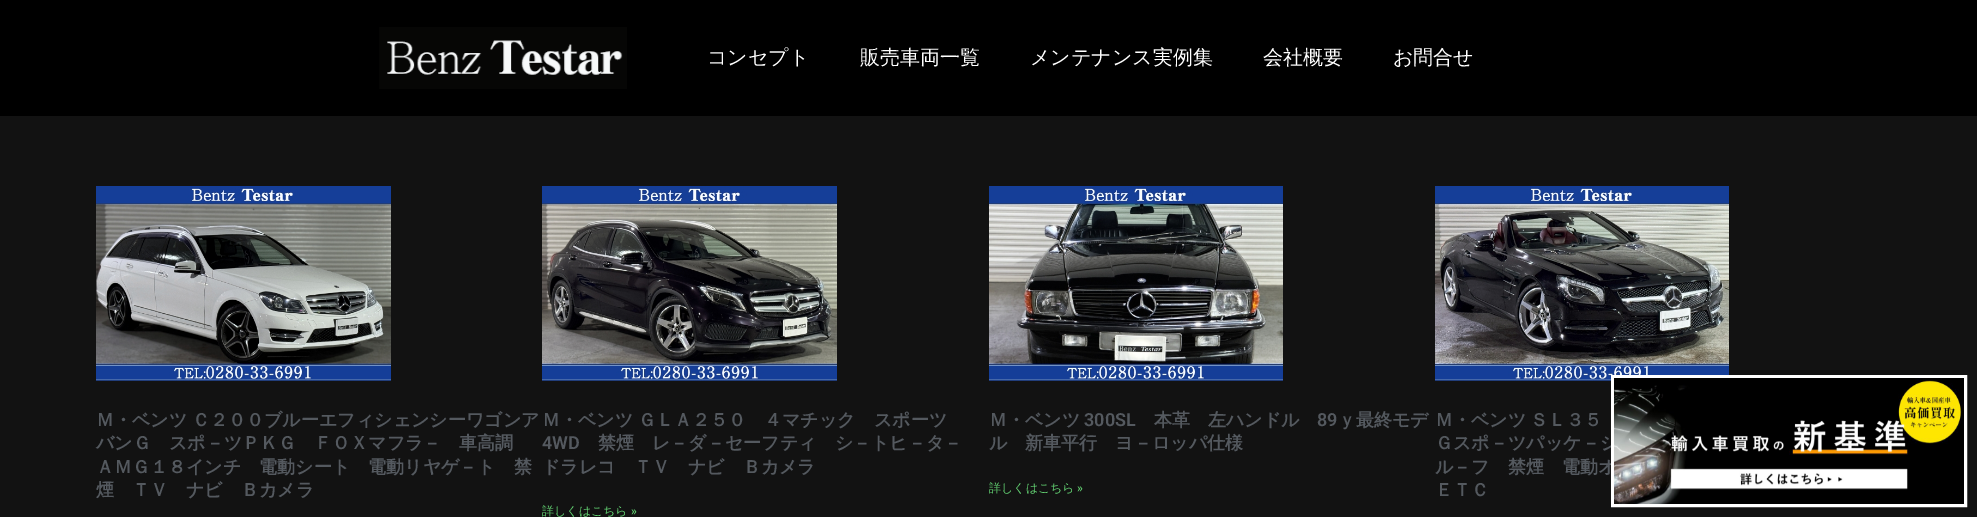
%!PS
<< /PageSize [1977 517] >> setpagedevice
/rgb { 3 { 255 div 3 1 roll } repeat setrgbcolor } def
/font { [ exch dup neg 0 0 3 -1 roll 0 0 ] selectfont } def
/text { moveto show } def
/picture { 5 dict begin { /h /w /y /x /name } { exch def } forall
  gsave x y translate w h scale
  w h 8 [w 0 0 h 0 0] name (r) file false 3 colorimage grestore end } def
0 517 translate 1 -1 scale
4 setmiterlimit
18 18 18 rgb
0 0 1977 517 rectfill
0 0 0 rgb
0 0 1977 116 rectfill
(img_01.rgb) 379 27 248 62 picture
(img_02.rgb) 96 186 295 195 picture
(img_03.rgb) 542 186 295 195 picture
(img_04.rgb) 989 186 294 195 picture
(img_05.rgb) 1435 186 294 195 picture
/WenQuanYiZenHei-Medium 20 font
255 255 255 rgb
(コンセプト) 707 64 text
(販売車両一覧) 860 64 text
(メンテナンス実例集) 1030 64 text
(会社概要) 1263 64 text
(お問合せ) 1393 64 text
/WenQuanYiZenHei-Bold 18 font
84 89 95 rgb
(Ｍ・ベンツ) 96 426 text
(Ｃ２００ブルーエフィシェンシーワゴンア) 192 426 text
(バンＧ　スポ－ツＰＫＧ　ＦＯＸマフラ－　車高調) 96 449 text
(ＡＭＧ１８インチ　電動シート　電動リヤゲ－ト　禁) 96 473 text
(煙　ＴＶ　ナビ　Ｂカメラ) 96 496 text
(Ｍ・ベンツ) 542 426 text
(ＧＬＡ２５０　４マチック　スポーツ) 638 426 text
/Roboto-SemiBold 18 font
(4WD) 542 449 text
/WenQuanYiZenHei-Bold 18 font
(禁煙　レ－ダ－セーフティ　シ－トヒ－タ－) 598 449 text
(ドラレコ　ＴＶ　ナビ　Ｂカメラ) 542 473 text
/WenQuanYiZenHei-Medium 12 font
97 206 112 rgb
(詳しくはこちら) 542 515 text
/Roboto-Medium 12 font
(») 631 515 text
/WenQuanYiZenHei-Bold 18 font
84 89 95 rgb
(Ｍ・ベンツ) 989 426 text
/Roboto-SemiBold 18 font
(300SL) 1084 426 text
/WenQuanYiZenHei-Bold 18 font
(本革　左ハンドル) 1154 426 text
/Roboto-SemiBold 18 font
(89) 1317 426 text
/WenQuanYiZenHei-Bold 18 font
(ｙ最終モデ) 1338 426 text
(ル　新車平行　ヨ－ロッパ仕様) 989 449 text
gsave
989 186 446 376 rectclip
/WenQuanYiZenHei-Medium 12 font
97 206 112 rgb
(詳しくはこちら) 989 492 text
grestore
/Roboto-Medium 12 font
97 206 112 rgb
(») 1077 492 text
/WenQuanYiZenHei-Bold 18 font
84 89 95 rgb
(Ｍ・ベンツ) 1435 426 text
(ＳＬ３５) 1530 426 text
(Ｇスポ－ツパッケ－ジ) 1435 449 text
(ル－フ　禁煙　電動オ) 1435 473 text
(ＥＴＣ) 1435 496 text
255 255 255 rgb
3 setlinewidth
1612.5 376.5 353 129 rectstroke
(img_06.rgb) 1614 378 350 126 picture
showpage
